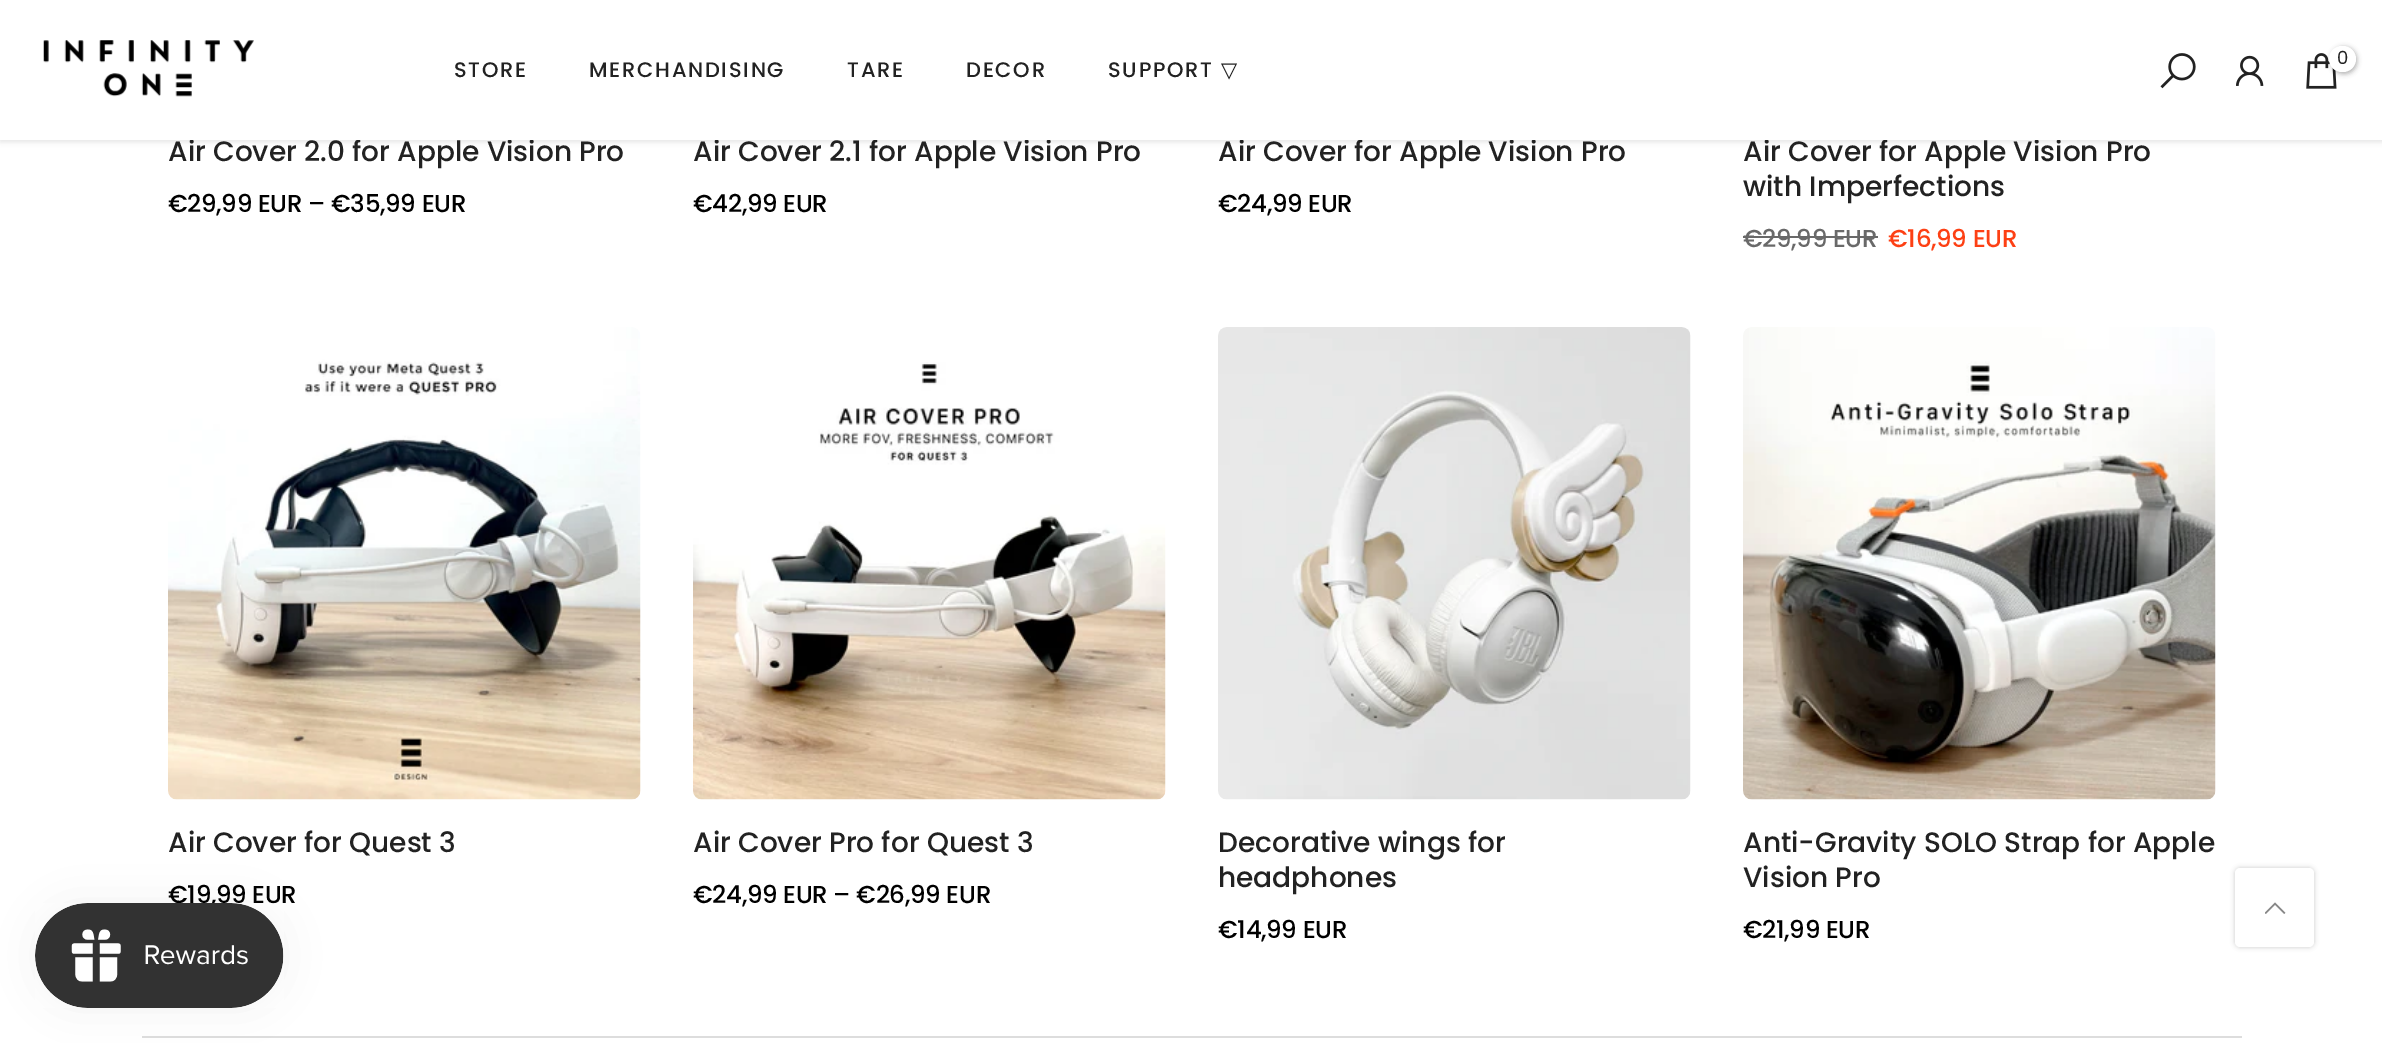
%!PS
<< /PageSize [2382 1043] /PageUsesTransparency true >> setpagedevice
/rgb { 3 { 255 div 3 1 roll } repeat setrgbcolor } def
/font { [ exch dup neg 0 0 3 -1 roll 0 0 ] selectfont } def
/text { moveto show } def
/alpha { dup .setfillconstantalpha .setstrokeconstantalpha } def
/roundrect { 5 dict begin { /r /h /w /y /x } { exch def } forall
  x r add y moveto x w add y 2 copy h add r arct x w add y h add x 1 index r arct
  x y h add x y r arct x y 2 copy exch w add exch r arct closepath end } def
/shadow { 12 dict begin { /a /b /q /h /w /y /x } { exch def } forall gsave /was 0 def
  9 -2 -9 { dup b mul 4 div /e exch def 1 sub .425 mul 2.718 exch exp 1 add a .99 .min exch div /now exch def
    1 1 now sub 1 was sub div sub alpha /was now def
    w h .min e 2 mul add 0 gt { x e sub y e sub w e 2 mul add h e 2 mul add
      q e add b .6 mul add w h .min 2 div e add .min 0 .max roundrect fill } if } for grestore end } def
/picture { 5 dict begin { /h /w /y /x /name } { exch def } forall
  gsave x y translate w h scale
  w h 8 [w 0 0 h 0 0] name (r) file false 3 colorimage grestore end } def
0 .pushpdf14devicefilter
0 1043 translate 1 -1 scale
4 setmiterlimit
255 255 255 rgb
0 0 2382 1043 rectfill
0 0 0 rgb
0 2 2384 140 0 2.5 0.1 shadow
105 105 105 rgb
1743 236 135 2 rectfill
(img_05.rgb) 168 327 473 473 picture
(img_06.rgb) 693 362 473 438 picture
(img_07.rgb) 1218 327 473 473 picture
(img_08.rgb) 1743 327 473 473 picture
221 221 221 rgb
142 1036 2100 2 rectfill
0 0 0 rgb
35 903 249 105 52.5 22 0.05 shadow
2235 868 79 79 5 2.5 0.2 shadow
255 255 255 rgb
2235 868 79 79 5 roundrect fill
(img_10.rgb) 2265 902 21 12 picture
/Poppins-Medium 28 font
34 34 34 rgb
(Air Cover 2.0 for Apple Vision Pro) 168 161 text
/Poppins-Medium 24.5 font
0 0 0 rgb
168 212 moveto -0.35 0 (€29,99 EUR – €35,99 EUR) ashow
/Poppins-Medium 28 font
34 34 34 rgb
(Air Cover 2.1 for Apple Vision Pro) 693 161 text
/Poppins-Medium 24.5 font
0 0 0 rgb
693 212 moveto -0.35 0 (€42,99 EUR) ashow
/Poppins-Medium 28 font
34 34 34 rgb
(Air Cover for Apple Vision Pro) 1218 161 text
/Poppins-Medium 24.5 font
0 0 0 rgb
1218 212 moveto -0.35 0 (€24,99 EUR) ashow
/Poppins-Medium 28 font
34 34 34 rgb
(Air Cover for Apple Vision Pro) 1743 161 text
255 255 255 rgb
0 0 2382 140 rectfill
(img_04.rgb) 2306 53 31 36 picture
0 0 0 rgb
2331 47 26 27 13 2.5 0.3 shadow
255 255 255 rgb
2329 46 27 26 13 roundrect fill
/Poppins-Regular 18 font
34 34 34 rgb
(0) 2337 64 text
(img_03.rgb) 2236 55 28 31 picture
(img_02.rgb) 2160 53 36 36 picture
/DejaVuSans-Regular 21 font
1221 77 moveto 1.75 0 (▽) ashow
/Poppins-Medium 21 font
1108 77 moveto 1.75 0 (SUPPORT) ashow
966 77 moveto 1.75 0 (DECOR) ashow
847 77 moveto 1.75 0 (TARE) ashow
589 77 moveto 1.75 0 (MERCHANDISING) ashow
454 77 moveto 1.75 0 (STORE) ashow
(img_01.rgb) 43 40 211 57 picture
/Poppins-Medium 28 font
(with Imperfections) 1743 196 text
/Poppins-Medium 24.5 font
105 105 105 rgb
1743 247 moveto -0.35 0 (€29,99 EUR) ashow
253 64 20 rgb
1888 247 moveto -0.35 0 (€16,99 EUR) ashow
/Poppins-Medium 28 font
34 34 34 rgb
(Air Cover for Quest 3) 168 852 text
/Poppins-Medium 24.5 font
0 0 0 rgb
168 903 moveto -0.35 0 (€19,99 EUR) ashow
/Poppins-Medium 28 font
34 34 34 rgb
(Air Cover Pro for Quest 3) 693 852 text
/Poppins-Medium 24.5 font
0 0 0 rgb
693 903 moveto -0.35 0 (€24,99 EUR – €26,99 EUR) ashow
/Poppins-Medium 28 font
34 34 34 rgb
(Decorative wings for) 1218 852 text
(headphones) 1218 887 text
/Poppins-Medium 24.5 font
0 0 0 rgb
1218 938 moveto -0.35 0 (€14,99 EUR) ashow
/Poppins-Medium 28 font
34 34 34 rgb
(Anti-Gravity SOLO Strap for Apple) 1743 852 text
(Vision Pro) 1743 887 text
/Poppins-Medium 24.5 font
0 0 0 rgb
1743 938 moveto -0.35 0 (€21,99 EUR) ashow
(img_09.rgb) 35 903 249 105 picture
.poppdf14devicefilter showpage
